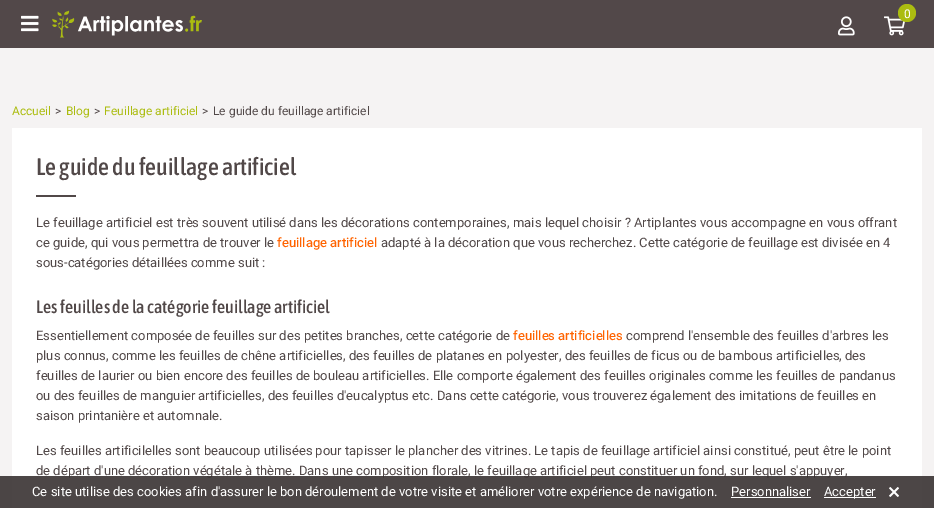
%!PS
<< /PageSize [934 508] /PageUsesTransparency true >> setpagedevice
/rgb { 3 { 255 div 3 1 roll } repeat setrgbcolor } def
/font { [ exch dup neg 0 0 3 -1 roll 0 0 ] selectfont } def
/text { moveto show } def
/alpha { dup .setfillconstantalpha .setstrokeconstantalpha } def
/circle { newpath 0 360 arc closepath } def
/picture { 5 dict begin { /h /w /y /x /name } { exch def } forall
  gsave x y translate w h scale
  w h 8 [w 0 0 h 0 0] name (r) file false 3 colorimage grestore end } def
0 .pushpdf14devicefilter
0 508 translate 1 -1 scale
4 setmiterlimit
245 243 243 rgb
0 0 934 508 rectfill
82 72 73 rgb
0 0 934 48 rectfill
(img_01.rgb) 21 15 18 17 picture
(img_02.rgb) 52 10 150 28 picture
(img_03.rgb) 884 16 21 20 picture
171 188 16 rgb
907 13 9 circle fill
(img_04.rgb) 838 16 17 20 picture
255 255 255 rgb
12 128 910 380 rectfill
81 72 72 rgb
36 195 40 2 rectfill
/Heebo-Regular 12 font
255 255 255 rgb
(0) 904 18 text
171 188 16 rgb
(Accueil) 12 115 text
81 72 72 rgb
(>) 55 115 text
171 188 16 rgb
(Blog) 66 115 text
81 72 72 rgb
(>) 94 115 text
171 188 16 rgb
(Feuillage artificiel) 104 115 text
81 72 72 rgb
(>) 202 115 text
(Le guide du feuillage artificiel) 213 115 text
/AsapCondensed-Medium 24 font
(Le guide du feuillage artificiel) 36 175 text
/Heebo-Regular 13 font
(Le feuillage artificiel est très souvent utilisé dans les décorations contemporaines, mais lequel choisir ? Artiplantes vous accompagne en vous offrant) 36 227 text
(ce guide, qui vous permettra de trouver le) 36 247 text
/Heebo-Medium 13 font
255 99 0 rgb
(feuillage artificiel) 277 247 text
/Heebo-Regular 13 font
81 72 72 rgb
(adapté à la décoration que vous recherchez. Cette catégorie de feuillage est divisée en 4) 381 247 text
(sous-catégories détaillées comme suit :) 36 267 text
/AsapCondensed-Medium 18 font
(Les feuilles de la catégorie feuillage artificiel) 36 313 text
/Heebo-Regular 13 font
(Essentiellement composée de feuilles sur des petites branches, cette catégorie de) 36 340 text
/Heebo-Medium 13 font
255 99 0 rgb
(feuilles artificielles) 513 340 text
/Heebo-Regular 13 font
81 72 72 rgb
(comprend l'ensemble des feuilles d'arbres les) 626 340 text
(plus connus, comme les feuilles de chêne artificielles, des feuilles de platanes en polyester, des feuilles de ficus ou de bambous artificielles, des) 36 360 text
(feuilles de laurier ou bien encore des feuilles de bouleau artificielles. Elle comporte également des feuilles originales comme les feuilles de pandanus) 36 380 text
(ou des feuilles de manguier artificielles, des feuilles d'eucalyptus etc. Dans cette catégorie, vous trouverez également des imitations de feuilles en) 36 400 text
(saison printanière et automnale.) 36 420 text
(Les feuilles artificilelles sont beaucoup utilisées pour tapisser le plancher des vitrines. Le tapis de feuillage artificiel ainsi constitué, peut être le point) 36 455 text
(de départ d'une décoration végétale à thème. Dans une composition florale, le feuillage artificiel peut constituer un fond, sur lequel s'appuyer,) 36 475 text
0.9 alpha
57 50 50 rgb
0 476 934 32 rectfill
1 alpha
255 255 255 rgb
(Ce site utilise des cookies afin d'assurer le bon déroulement de votre visite et améliorer votre expérience de navigation.) 32 496 text
(Personnaliser) 731 496 text
731 497 80 1 rectfill
824 497 52 1 rectfill
(Accepter) 824 496 text
(img_05.rgb) 889 487 10 10 picture
.poppdf14devicefilter showpage
